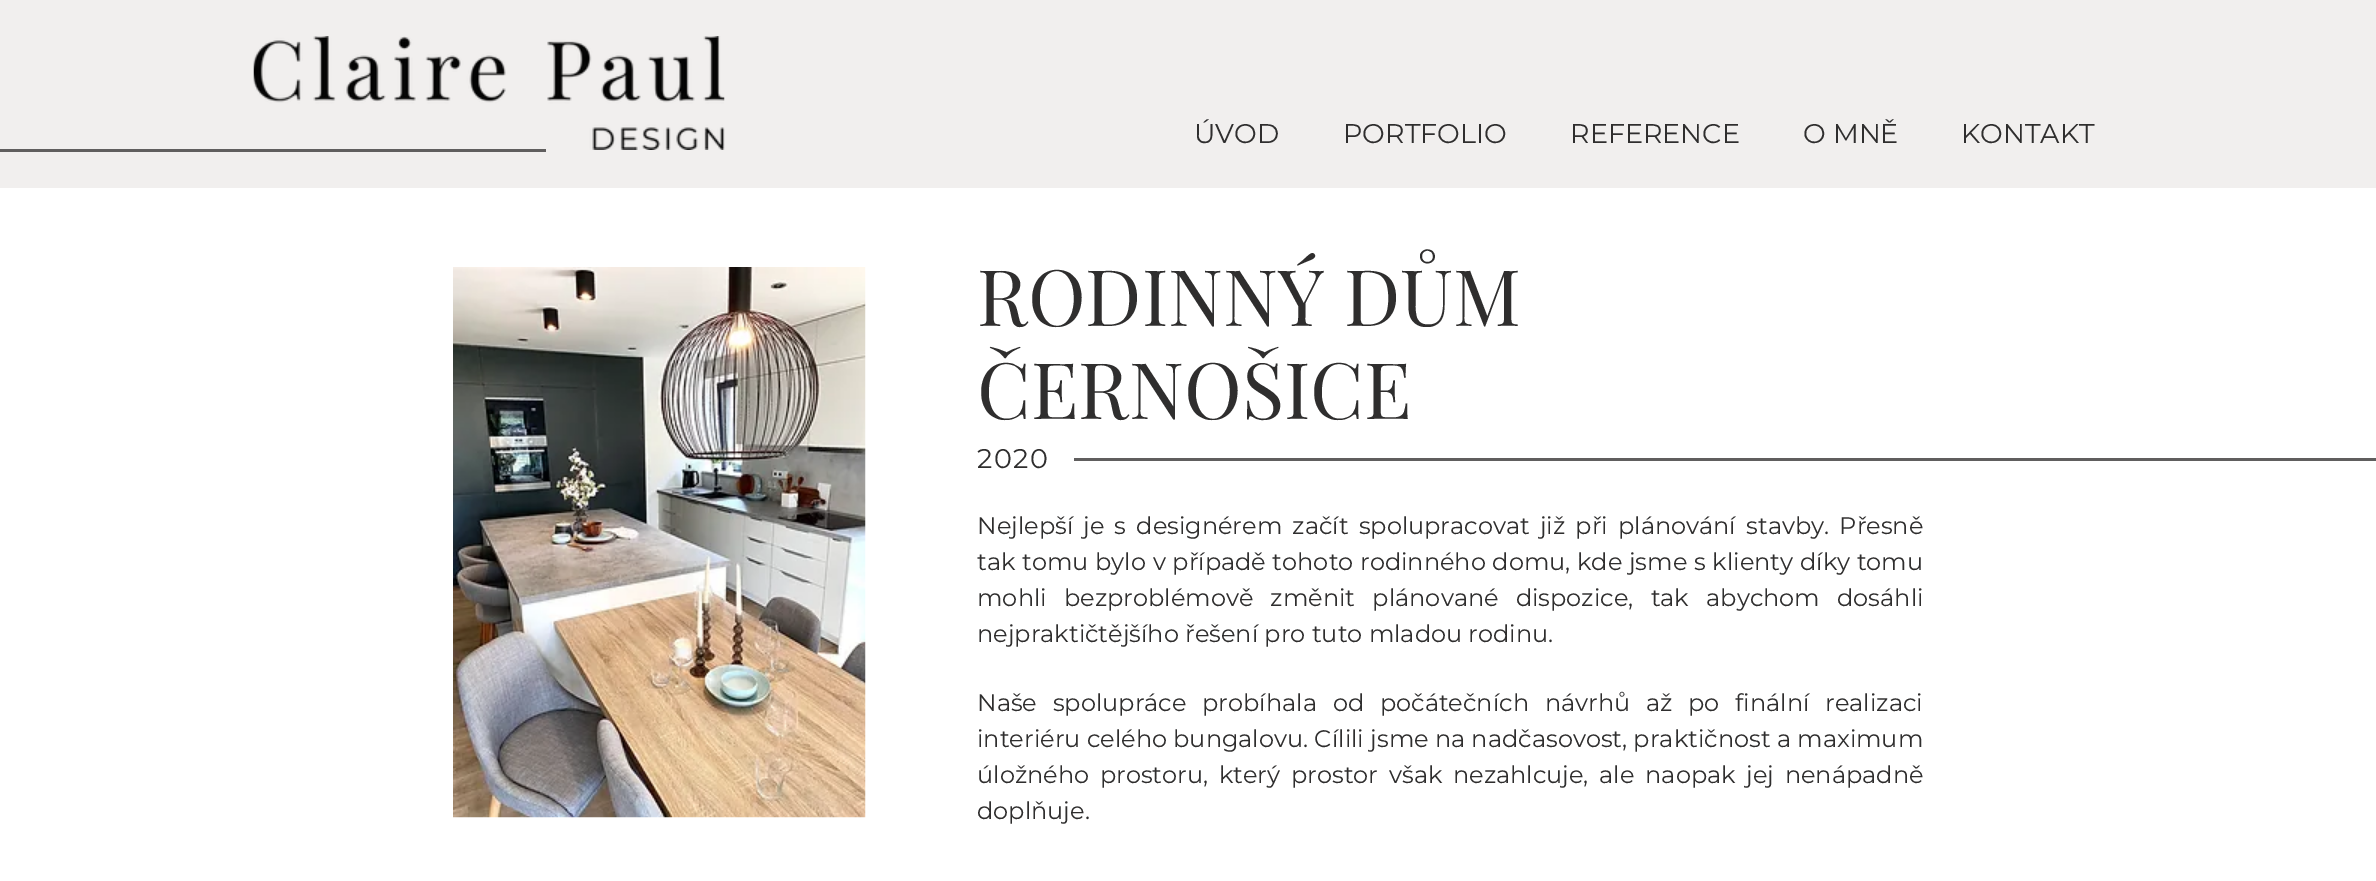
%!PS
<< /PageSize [2376 881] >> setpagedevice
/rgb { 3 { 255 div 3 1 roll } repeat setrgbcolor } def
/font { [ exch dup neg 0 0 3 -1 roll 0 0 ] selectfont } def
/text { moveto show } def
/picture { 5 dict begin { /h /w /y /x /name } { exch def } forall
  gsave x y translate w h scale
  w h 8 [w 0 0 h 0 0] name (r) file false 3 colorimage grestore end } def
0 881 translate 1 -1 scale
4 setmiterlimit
255 255 255 rgb
0 0 2376 881 rectfill
241 239 238 rgb
0 0 2376 188 rectfill
(img_01.rgb) 253 36 472 114 picture
96 94 94 rgb
0 149 546 3 rectfill
(img_02.rgb) 453 267 413 551 picture
1074 458 1302 3 rectfill
/Montserrat-Regular 27 font
47 46 46 rgb
(ÚVOD) 1194 143 text
(PORTFOLIO) 1343 143 text
(REFERENCE) 1570 143 text
(O MNĚ) 1803 143 text
(KONTAKT) 1961 143 text
/PlayfairDisplay-Regular 78 font
(RODINNÝ DŮM) 977 326 text
(ČERNOŠICE) 977 419 text
/Montserrat-Regular 27 font
977 468 moveto 1.5 0 (2020) ashow
/Montserrat-Regular 24 font
977 534 moveto 3.9 0 32 (Nejlepší je s designérem začít spolupracovat již při plánování stavby. Přesně) widthshow
977 570 moveto 0.4 0 32 (tak tomu bylo v případě tohoto rodinného domu, kde jsme s klienty díky tomu) widthshow
977 606 moveto 11 0 32 (mohli bezproblémově změnit plánované dispozice, tak abychom dosáhli) widthshow
(nejpraktičtějšího řešení pro tuto mladou rodinu.) 977 642 text
977 711 moveto 9.5 0 32 (Naše spolupráce probíhala od počátečních návrhů až po finální realizaci) widthshow
(interiéru celého bungalovu. Cílili jsme na nadčasovost, praktičnost a maximum) 977 747 text
977 783 moveto 4.5 0 32 (úložného prostoru, který prostor však nezahlcuje, ale naopak jej nenápadně) widthshow
(doplňuje.) 977 819 text
showpage
